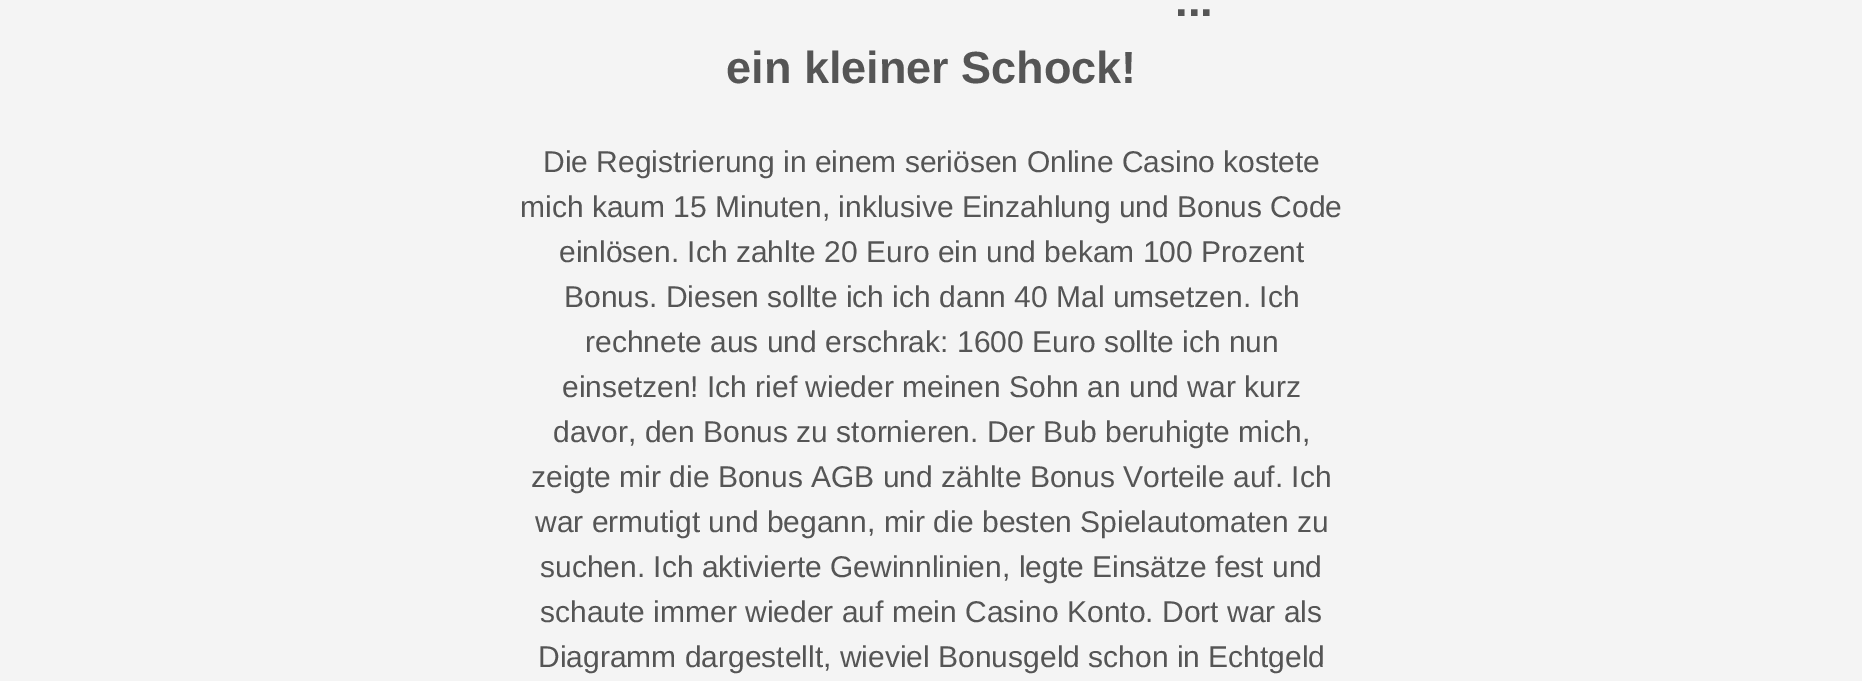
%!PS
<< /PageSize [1862 681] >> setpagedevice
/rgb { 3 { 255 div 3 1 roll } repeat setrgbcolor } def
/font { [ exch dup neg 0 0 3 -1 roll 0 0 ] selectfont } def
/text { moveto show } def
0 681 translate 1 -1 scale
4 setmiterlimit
244 244 244 rgb
0 0 1862 681 rectfill
/LiberationSans-Bold 45 font
85 85 85 rgb
(...) 1175 16 text
(ein kleiner Schock!) 726 83 text
/LiberationSans-Regular 30 font
(Die Registrierung in einem seriösen Online Casino kostete) 543 172 text
(mich kaum 15 Minuten, inklusive Einzahlung und Bonus Code) 520 217 text
(einlösen. Ich zahlte 20 Euro ein und bekam 100 Prozent) 559 262 text
(Bonus. Diesen sollte ich ich dann 40 Mal umsetzen. Ich) 564 307 text
(rechnete aus und erschrak: 1600 Euro sollte ich nun) 585 352 text
(einsetzen! Ich rief wieder meinen Sohn an und war kurz) 562 397 text
(davor, den Bonus zu stornieren. Der Bub beruhigte mich,) 553 442 text
(zeigte mir die Bonus AGB und zählte Bonus Vorteile auf. Ich) 531 487 text
(war ermutigt und begann, mir die besten Spielautomaten zu) 535 532 text
(suchen. Ich aktivierte Gewinnlinien, legte Einsätze fest und) 540 577 text
(schaute immer wieder auf mein Casino Konto. Dort war als) 540 622 text
(Diagramm dargestellt, wieviel Bonusgeld schon in Echtgeld) 538 667 text
showpage
